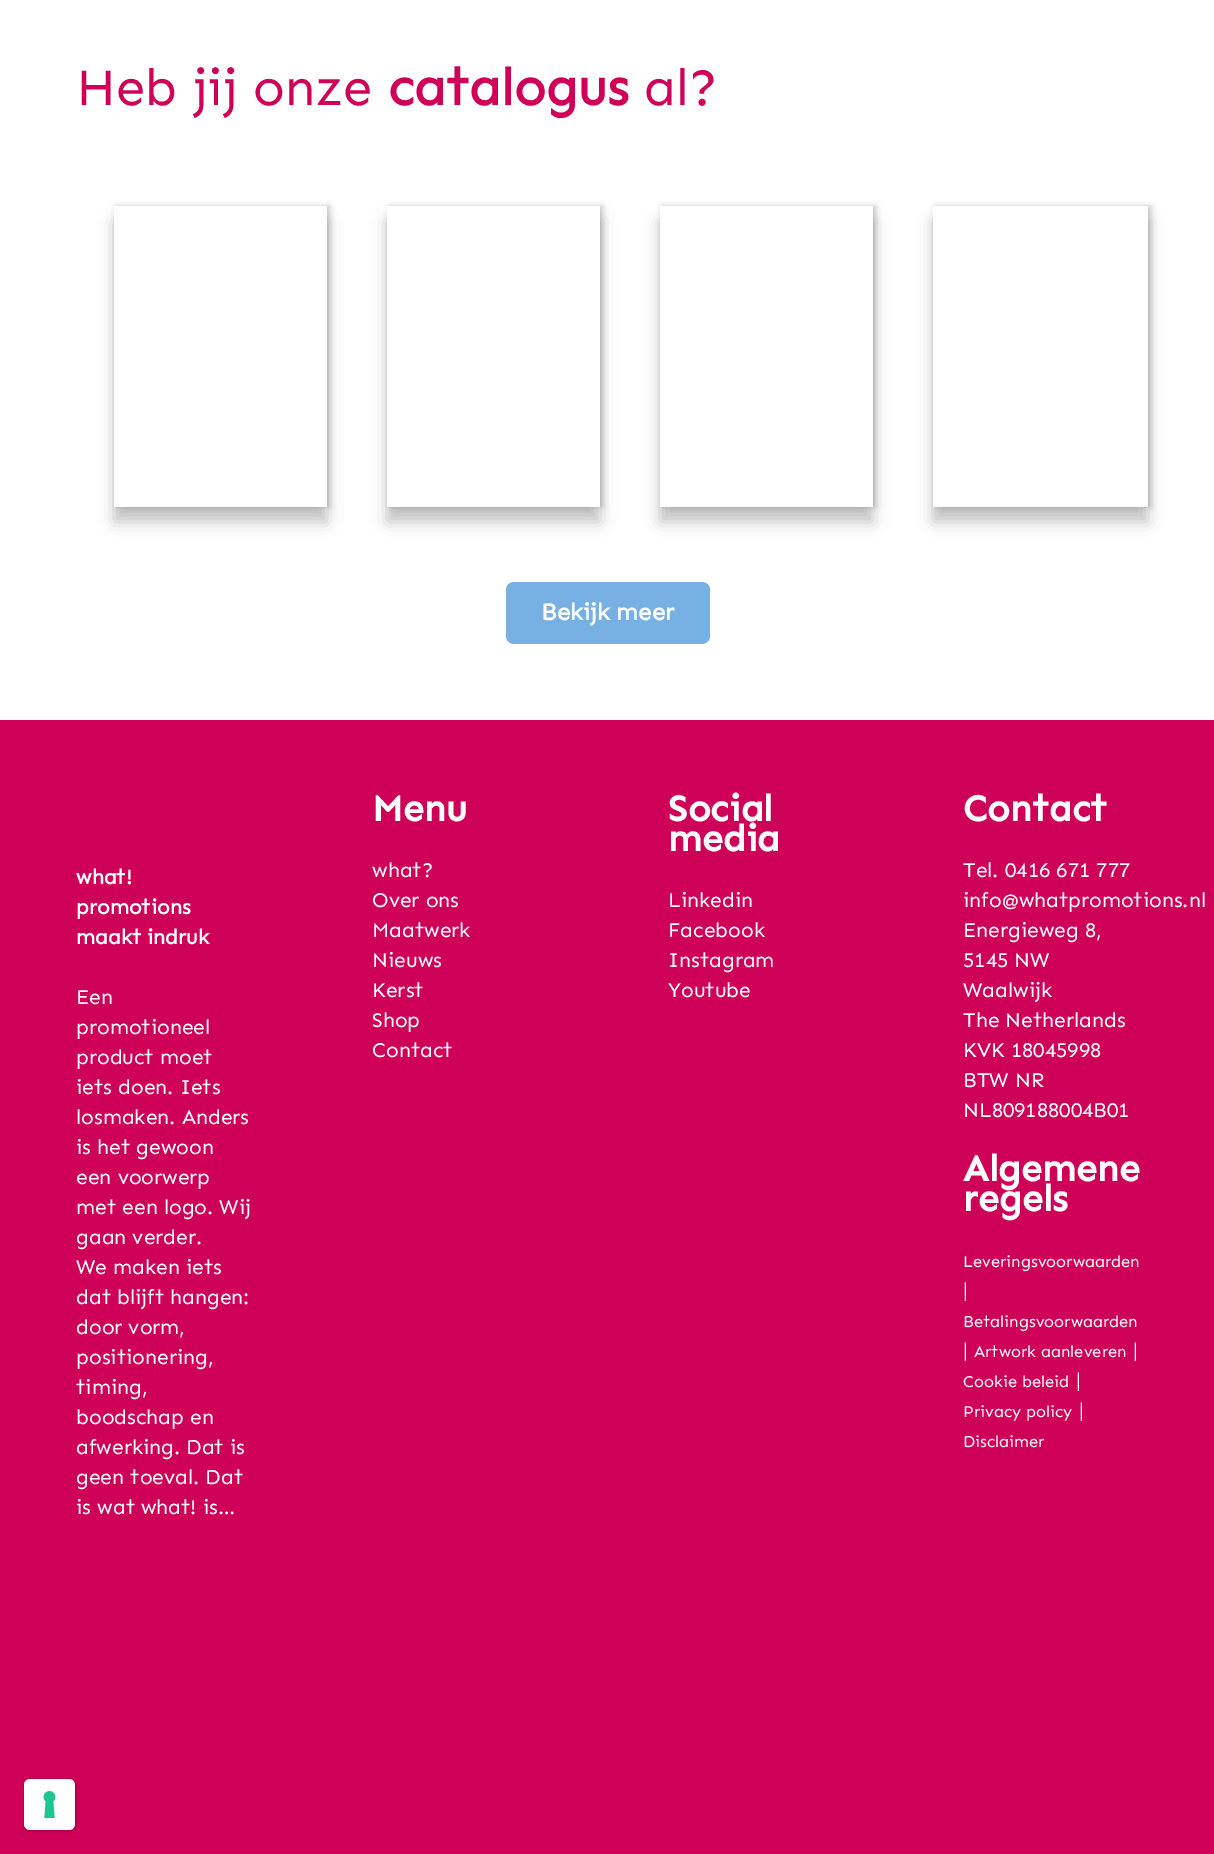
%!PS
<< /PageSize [1214 1854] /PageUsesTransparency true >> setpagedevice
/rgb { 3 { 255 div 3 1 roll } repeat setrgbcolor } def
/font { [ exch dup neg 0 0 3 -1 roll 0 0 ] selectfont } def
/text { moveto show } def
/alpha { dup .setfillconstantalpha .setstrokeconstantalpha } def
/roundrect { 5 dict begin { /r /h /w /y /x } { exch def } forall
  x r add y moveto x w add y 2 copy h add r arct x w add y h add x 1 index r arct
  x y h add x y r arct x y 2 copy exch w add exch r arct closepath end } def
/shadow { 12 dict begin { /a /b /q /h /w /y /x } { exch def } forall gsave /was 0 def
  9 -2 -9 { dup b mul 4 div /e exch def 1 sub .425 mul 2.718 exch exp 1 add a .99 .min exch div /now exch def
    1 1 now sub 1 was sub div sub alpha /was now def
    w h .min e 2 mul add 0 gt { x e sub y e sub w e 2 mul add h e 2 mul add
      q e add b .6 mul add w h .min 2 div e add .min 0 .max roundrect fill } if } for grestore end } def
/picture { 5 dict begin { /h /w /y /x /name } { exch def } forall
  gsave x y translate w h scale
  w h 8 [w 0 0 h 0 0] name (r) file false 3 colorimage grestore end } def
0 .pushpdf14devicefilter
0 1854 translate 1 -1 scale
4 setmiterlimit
255 255 255 rgb
0 0 1214 1854 rectfill
gsave
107 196 moveto 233 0 rlineto 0 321 rlineto -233 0 rlineto closepath 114 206 moveto 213 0 rlineto 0 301 rlineto -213 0 rlineto closepath eoclip newpath
0 0 0 rgb
117 206 213 301 0 3 0.2 shadow
grestore
gsave
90 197 moveto 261 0 rlineto 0 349 rlineto -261 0 rlineto closepath 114 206 moveto 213 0 rlineto 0 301 rlineto -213 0 rlineto closepath eoclip newpath
0 0 0 rgb
114 221 213 301 0 7.5 0.24 shadow
grestore
gsave
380 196 moveto 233 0 rlineto 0 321 rlineto -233 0 rlineto closepath 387 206 moveto 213 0 rlineto 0 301 rlineto -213 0 rlineto closepath eoclip newpath
0 0 0 rgb
390 206 213 301 0 3 0.2 shadow
grestore
gsave
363 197 moveto 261 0 rlineto 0 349 rlineto -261 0 rlineto closepath 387 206 moveto 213 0 rlineto 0 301 rlineto -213 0 rlineto closepath eoclip newpath
0 0 0 rgb
387 221 213 301 0 7.5 0.24 shadow
grestore
gsave
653 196 moveto 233 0 rlineto 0 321 rlineto -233 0 rlineto closepath 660 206 moveto 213 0 rlineto 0 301 rlineto -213 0 rlineto closepath eoclip newpath
0 0 0 rgb
663 206 213 301 0 3 0.2 shadow
grestore
gsave
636 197 moveto 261 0 rlineto 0 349 rlineto -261 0 rlineto closepath 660 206 moveto 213 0 rlineto 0 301 rlineto -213 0 rlineto closepath eoclip newpath
0 0 0 rgb
660 221 213 301 0 7.5 0.24 shadow
grestore
0 0 0 rgb
936 206 215 301 0 3 0.2 shadow
255 255 255 rgb
933 206 215 301 rectfill
gsave
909 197 moveto 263 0 rlineto 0 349 rlineto -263 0 rlineto closepath 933 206 moveto 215 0 rlineto 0 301 rlineto -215 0 rlineto closepath eoclip newpath
0 0 0 rgb
933 221 215 301 0 7.5 0.24 shadow
grestore
119 176 227 rgb
506 582 204 62 8 roundrect fill
206 0 88 rgb
0 720 1214 1134 rectfill
175 0 75 rgb
2 setlinewidth
24 1779 52 52 7 roundrect stroke
255 255 255 rgb
24 1779 51 51 6 roundrect fill
(img_01.rgb) 43 1791 13 27 picture
/Sen-Regular 52.5 font
206 0 88 rgb
(Heb jij onze) 76 105 text
/Sen-Bold 52.5 font
(catalogus) 388 105 text
/Sen-Regular 52.5 font
(al?) 644 105 text
/Sen-Bold 24 font
255 255 255 rgb
(Bekijk meer) 541 620 text
/Sen-Bold 21 font
(what!) 76 884 text
(promotions) 76 914 text
(maakt indruk) 76 944 text
/Sen-Regular 21 font
(Een) 76 1004 text
(promotioneel) 76 1034 text
(product moet) 76 1064 text
(iets doen. Iets) 76 1094 text
(losmaken. Anders) 76 1124 text
(is het gewoon) 76 1154 text
(een voorwerp) 76 1184 text
(met een logo. Wij) 76 1214 text
(gaan verder.) 76 1244 text
(We maken iets) 76 1274 text
(dat blijft hangen:) 76 1304 text
(door vorm,) 76 1334 text
(positionering,) 76 1364 text
(timing,) 76 1394 text
(boodschap en) 76 1424 text
(afwerking. Dat is) 76 1454 text
(geen toeval. Dat) 76 1484 text
(is wat what! is…) 76 1514 text
/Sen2-Bold 37.5 font
(Menu) 372 821 text
/Sen-Regular 21 font
(what?) 372 877 text
(Over ons) 372 907 text
(Maatwerk) 372 937 text
(Nieuws) 372 967 text
(Kerst) 372 997 text
(Shop) 372 1027 text
(Contact) 372 1057 text
/Sen2-Bold 37.5 font
(Social) 668 821 text
(media) 668 851 text
/Sen-Regular 21 font
(Linkedin) 668 907 text
(Facebook) 668 937 text
(Instagram) 668 967 text
(Youtube) 668 997 text
/Sen2-Bold 37.5 font
(Contact) 963 821 text
/Sen2-Regular 21 font
(Tel.) 963 877 text
/Sen-Regular 21 font
(0416 671 777) 1005 877 text
(info@whatpromotions.nl) 963 907 text
(Energieweg 8,) 963 937 text
(5145 NW) 963 967 text
(Waalwijk) 963 997 text
(The Netherlands) 963 1027 text
/Sen2-Regular 21 font
(KVK 18045998) 963 1057 text
(BTW NR) 963 1087 text
(NL809188004B01) 963 1117 text
/Sen2-Bold 37.5 font
(Algemene) 963 1181 text
(regels) 963 1211 text
/Sen-Regular 16.5 font
(Leveringsvoorwaarden) 963 1267 text
/Sen-Regular 21 font
(|) 963 1297 text
/Sen-Regular 16.5 font
(Betalingsvoorwaarden) 963 1327 text
/Sen-Regular 21 font
(|) 963 1357 text
/Sen-Regular 16.5 font
(Artwork aanleveren) 974 1357 text
/Sen-Regular 21 font
(|) 1133 1357 text
/Sen-Regular 16.5 font
(Cookie beleid) 963 1387 text
/Sen-Regular 21 font
(|) 1076 1387 text
/Sen-Regular 16.5 font
(Privacy policy) 963 1417 text
/Sen-Regular 21 font
(|) 1079 1417 text
/Sen-Regular 16.5 font
(Disclaimer) 963 1447 text
.poppdf14devicefilter showpage
